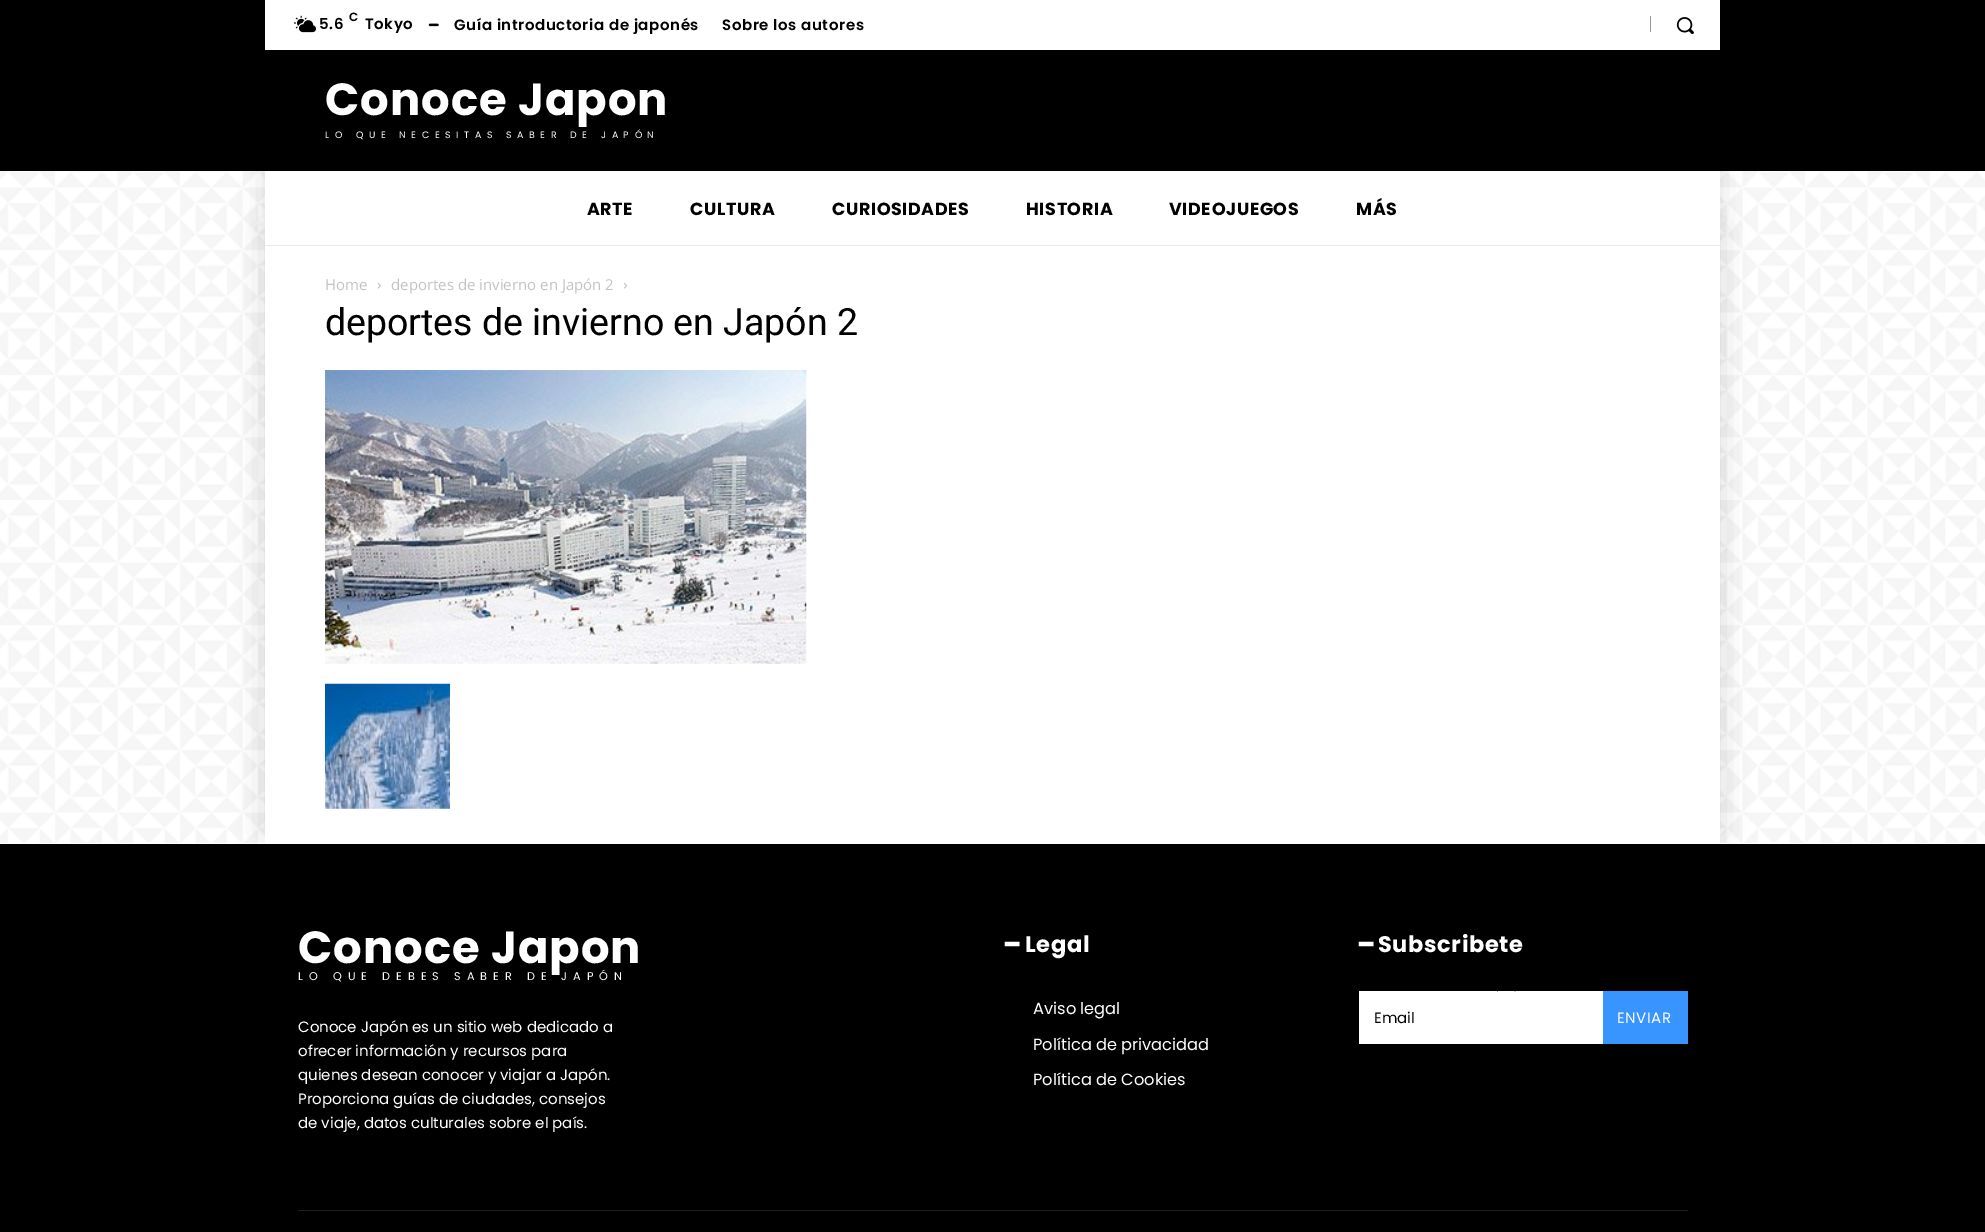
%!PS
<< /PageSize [1985 1232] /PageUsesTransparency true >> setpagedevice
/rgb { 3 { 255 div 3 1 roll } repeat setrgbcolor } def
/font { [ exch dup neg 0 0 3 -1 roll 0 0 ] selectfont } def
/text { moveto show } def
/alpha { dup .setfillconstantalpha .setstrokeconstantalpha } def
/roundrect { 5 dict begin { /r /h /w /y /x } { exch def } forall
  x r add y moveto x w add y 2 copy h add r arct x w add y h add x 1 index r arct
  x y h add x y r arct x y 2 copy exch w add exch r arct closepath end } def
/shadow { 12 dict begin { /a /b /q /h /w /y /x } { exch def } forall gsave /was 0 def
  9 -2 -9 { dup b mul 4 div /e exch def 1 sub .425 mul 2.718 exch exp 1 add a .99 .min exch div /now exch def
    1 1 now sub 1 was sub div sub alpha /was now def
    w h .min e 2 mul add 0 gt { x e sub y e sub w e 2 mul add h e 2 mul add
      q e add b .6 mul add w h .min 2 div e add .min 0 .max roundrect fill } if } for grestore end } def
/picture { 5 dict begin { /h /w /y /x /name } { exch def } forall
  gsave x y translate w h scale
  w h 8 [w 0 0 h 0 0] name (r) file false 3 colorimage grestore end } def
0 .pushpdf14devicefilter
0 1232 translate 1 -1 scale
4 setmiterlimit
255 255 255 rgb
0 0 1985 1232 rectfill
(img_01.rgb) 0 171 1985 672 picture
0 0 0 rgb
0 0 1985 171 rectfill
255 255 255 rgb
265 0 1455 50 rectfill
(img_02.rgb) 294 15 22 18 picture
(img_03.rgb) 428 23 11 4 picture
153 153 153 rgb
1650 16 1 16 rectfill
(img_04.rgb) 1676 17 18 18 picture
0 0 0 rgb
261 230 1463 604 0 12.5 0.12 shadow
255 255 255 rgb
265 246 1455 597 rectfill
0 0 0 rgb
265 146 1455 75 0 12.5 0.12 shadow
255 255 255 rgb
265 171 1455 74 rectfill
234 234 234 rgb
265 245 1455 1 rectfill
(img_05.rgb) 377 283 4 6 picture
(img_06.rgb) 623 282 4 7 picture
(img_07.rgb) 325 370 482 294 picture
(img_08.rgb) 325 683 125 126 picture
255 255 255 rgb
257 843 1471 1 rectfill
0 0 0 rgb
0 844 1985 388 rectfill
255 255 255 rgb
1359 991 244 53 rectfill
0 0 0 rgb
2.5 setlinewidth
1496.5 990.5 moveto 5.5 -5.5 14 -5.5 19.5 0 rcurveto stroke
56 148 255 rgb
1603 991 85 53 rectfill
31 31 31 rgb
298 1210 1390 1 rectfill
/Poppins-SemiBold 15 font
0 0 0 rgb
319 29 moveto 0.6 0 (5.6) ashow
/Poppins-SemiBold 12 font
(C) 349 21 text
/Poppins-SemiBold 15 font
365 29 moveto 0.6 0 (Tokyo) ashow
454 30 moveto 0.6 0 (Guía introductoria de japonés) ashow
722 30 moveto 0.6 0 (Sobre los autores) ashow
/Poppins-Bold 45 font
255 255 255 rgb
325 115 moveto 0.9 0 (Conoce Japon) ashow
/Poppins-Regular 9.4 font
325 138 moveto 5.6 0 (LO QUE NECESITAS SABER DE JAPÓN) ashow
/Poppins-Bold 17.5 font
0 0 0 rgb
587 215 moveto 0.6 0 (ARTE) ashow
690 215 moveto 0.6 0 (CULTURA) ashow
832 215 moveto 0.6 0 (CURIOSIDADES) ashow
1026 215 moveto 0.6 0 (HISTORIA) ashow
1169 215 moveto 0.6 0 (VIDEOJUEGOS) ashow
1356 215 moveto 0.6 0 (MÁS) ashow
/OpenSans-Regular 15 font
195 195 195 rgb
(Home) 325 290 text
(deportes de invierno en Japón 2) 391 290 text
/Roboto-Regular 37.5 font
0 0 0 rgb
(deportes de invierno en Japón 2) 325 335 text
/Poppins-Bold 45 font
255 255 255 rgb
298 963 moveto 0.9 0 (Conoce Japon) ashow
/Poppins-Regular 11.25 font
298 980 moveto 6 0 (LO QUE DEBES SABER DE JAPÓN) ashow
/Poppins-Regular 15 font
(Conoce Japón es un sitio web dedicado a) 298 1032 text
(ofrecer información y recursos para) 298 1056 text
(quienes desean conocer y viajar a Japón.) 298 1080 text
(Proporciona guías de ciudades, consejos) 298 1104 text
(de viaje, datos culturales sobre el país.) 298 1128 text
/DejaVuSans-Bold 22.5 font
1005 952 moveto 0.6 0 (━) ashow
/Poppins-Bold 22.5 font
1025 952 moveto 0.6 0 (Legal) ashow
/Poppins-Regular 16.25 font
(Aviso legal) 1033 1014 text
(Política de privacidad) 1033 1050 text
(Política de Cookies) 1033 1085 text
/DejaVuSans-Bold 22.5 font
1359 952 moveto 0.6 0 (━) ashow
/Poppins-Bold 22.5 font
1378 952 moveto 0.6 0 (Subscribete) ashow
/Poppins-Regular 15 font
0 0 0 rgb
(Email) 1374 1023 text
255 255 255 rgb
1617 1023 moveto 0.6 0 (ENVIAR) ashow
.poppdf14devicefilter showpage
